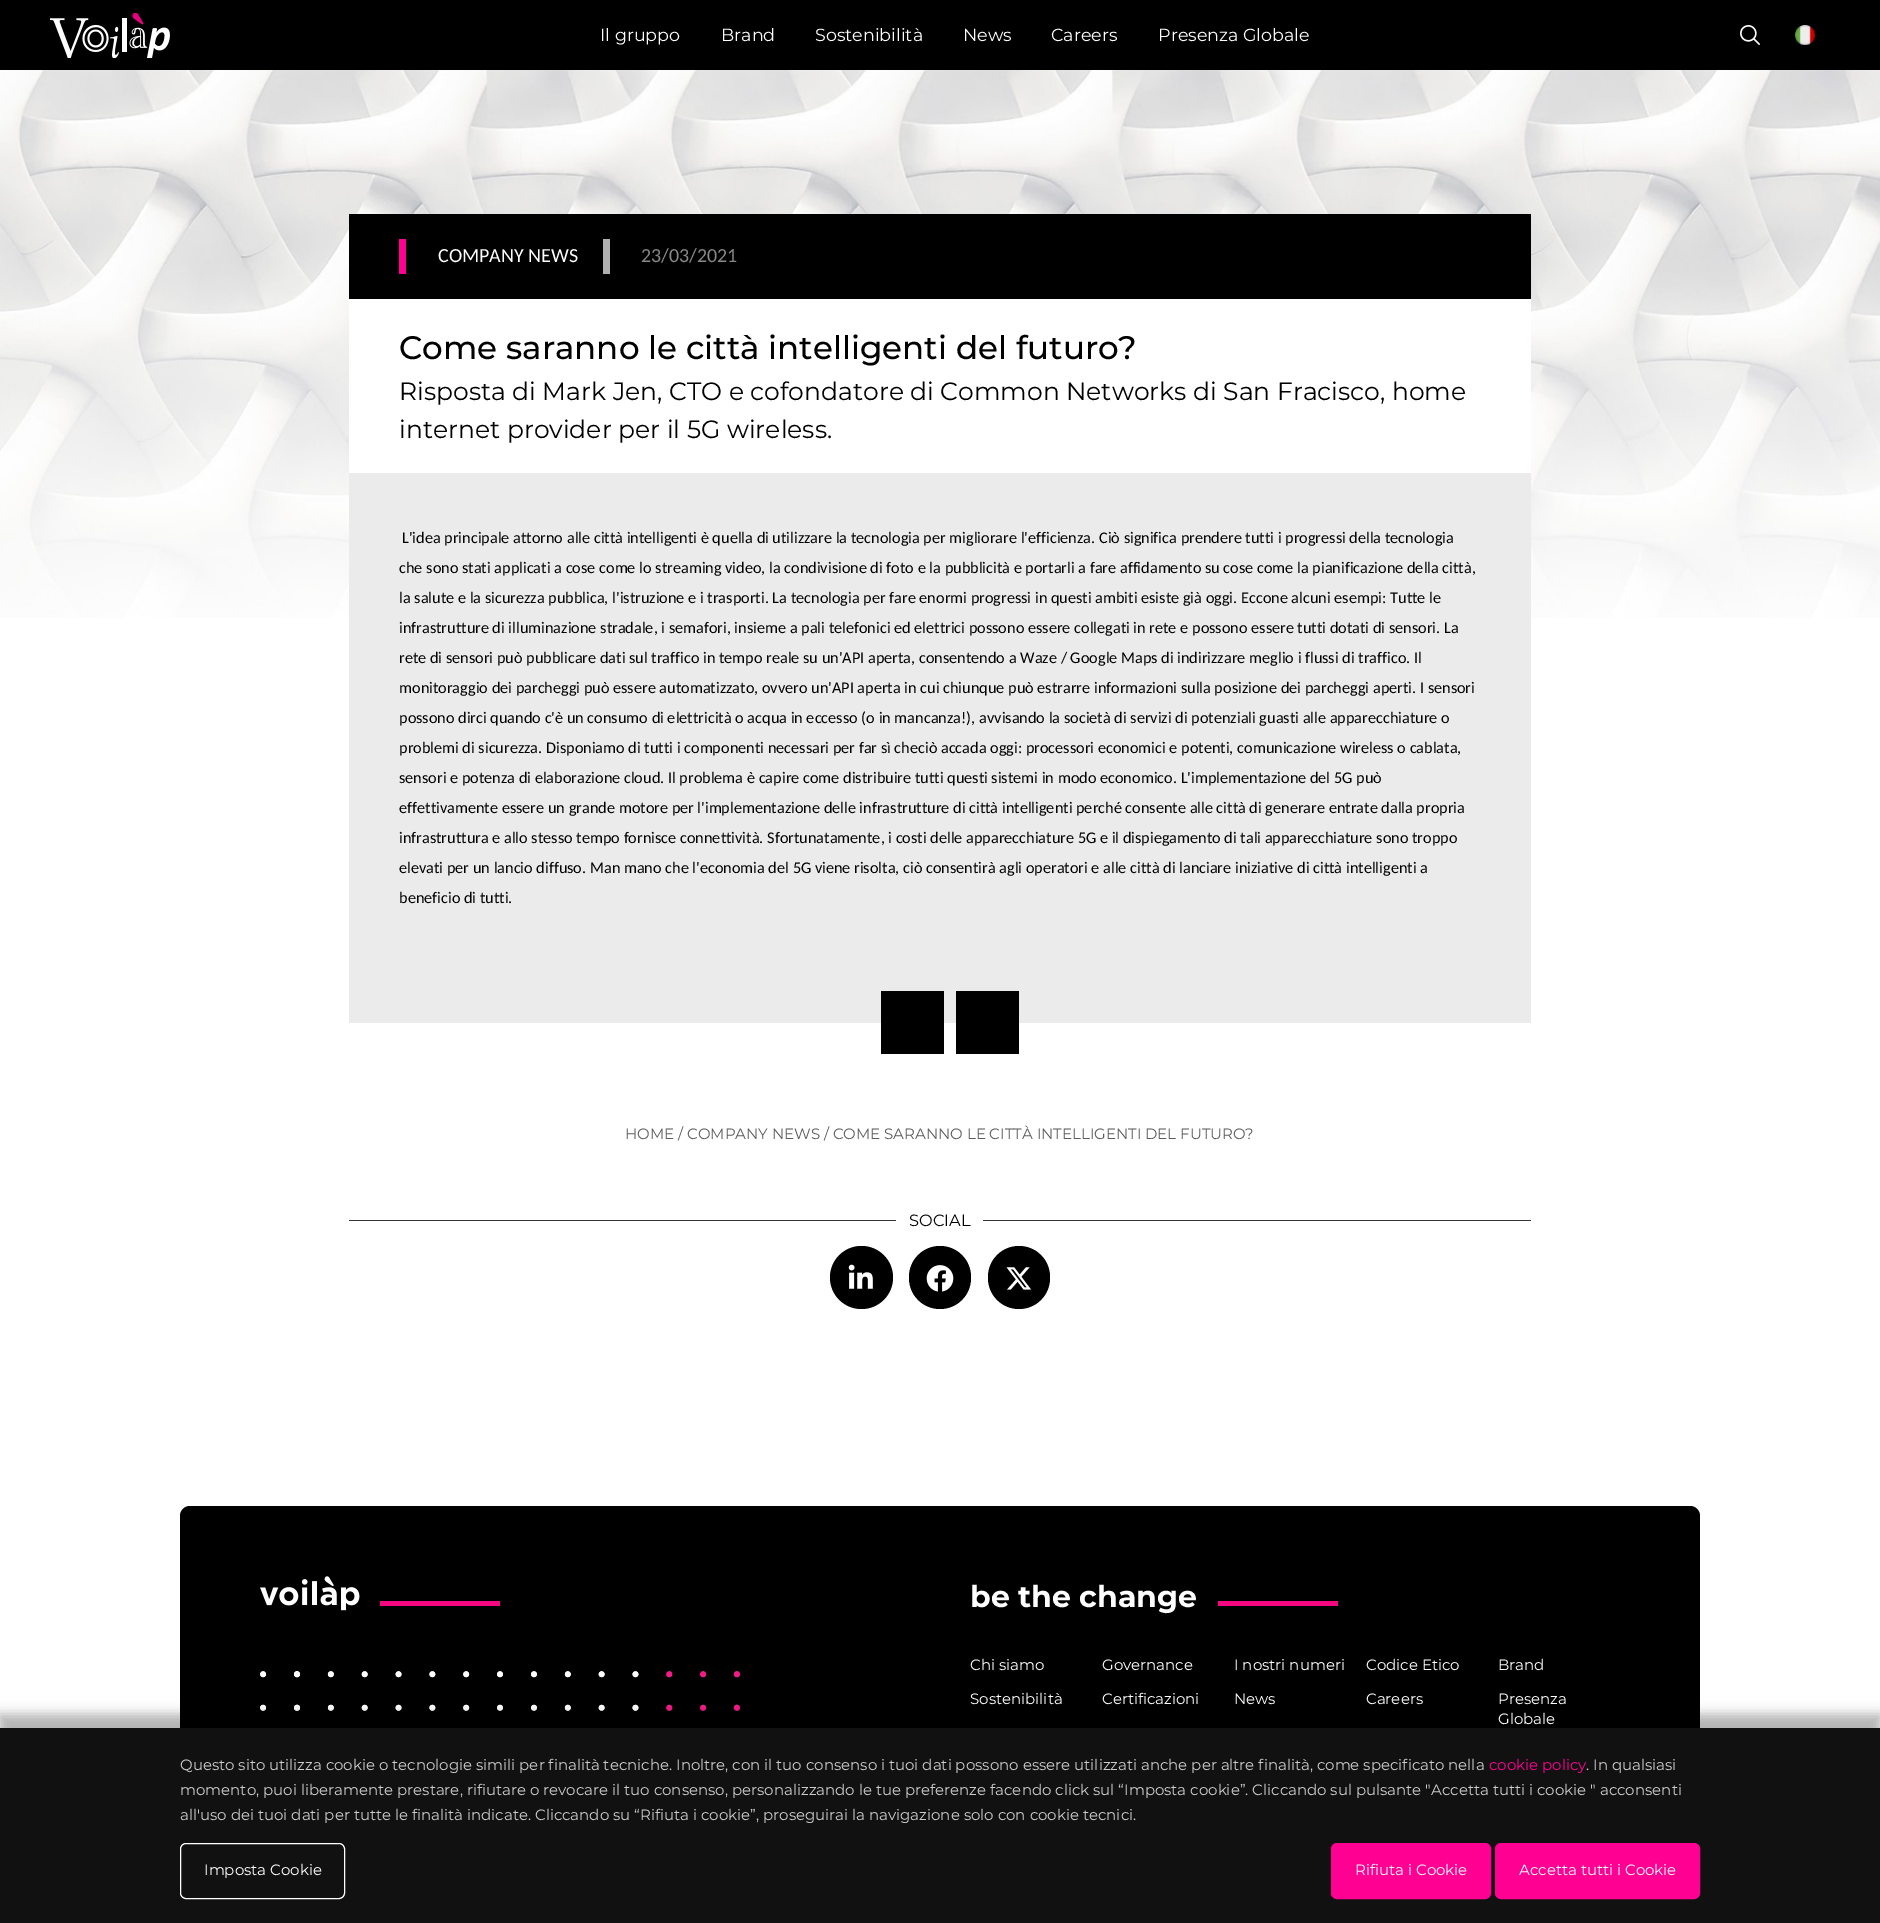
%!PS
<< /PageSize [1880 1923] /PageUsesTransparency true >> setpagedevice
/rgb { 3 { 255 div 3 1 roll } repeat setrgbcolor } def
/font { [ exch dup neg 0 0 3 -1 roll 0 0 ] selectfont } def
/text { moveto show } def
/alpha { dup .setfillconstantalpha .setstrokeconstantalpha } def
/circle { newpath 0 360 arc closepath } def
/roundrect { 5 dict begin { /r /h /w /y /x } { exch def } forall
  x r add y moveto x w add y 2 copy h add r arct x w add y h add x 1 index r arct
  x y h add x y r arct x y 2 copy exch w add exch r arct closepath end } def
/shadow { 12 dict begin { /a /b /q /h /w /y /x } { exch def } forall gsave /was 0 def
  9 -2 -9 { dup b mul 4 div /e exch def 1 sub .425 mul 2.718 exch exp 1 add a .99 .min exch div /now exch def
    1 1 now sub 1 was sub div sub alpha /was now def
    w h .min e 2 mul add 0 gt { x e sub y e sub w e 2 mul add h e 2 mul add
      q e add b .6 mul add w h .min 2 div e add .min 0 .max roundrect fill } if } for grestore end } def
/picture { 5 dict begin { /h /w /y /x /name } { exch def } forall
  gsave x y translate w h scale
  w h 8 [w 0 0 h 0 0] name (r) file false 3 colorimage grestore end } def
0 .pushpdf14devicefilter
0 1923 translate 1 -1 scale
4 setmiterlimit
255 255 255 rgb
0 0 1880 1923 rectfill
0 0 0 rgb
0 0 1880 70 rectfill
(img_01.rgb) 50 13 120 45 picture
(img_02.rgb) 1740 25 20 20 picture
(img_03.rgb) 1795 25 20 20 picture
(img_04.rgb) 0 70 1880 548 picture
349 214 1182 85 rectfill
255 0 146 rgb
399 239 7 35 rectfill
176 176 176 rgb
603 239 7 35 rectfill
255 255 255 rgb
349 299 1182 174 rectfill
235 235 235 rgb
349 473 1182 550 rectfill
0 0 0 rgb
881 991 63 63 rectfill
956 991 63 63 rectfill
51 51 51 rgb
349 1220 1182 1 rectfill
255 255 255 rgb
896 1220 87 1 rectfill
0 0 0 rgb
861.5 1277.5 31.5 circle fill
(img_05.rgb) 848 1264 25 25 picture
909 1246 62 63 31 roundrect fill
(img_06.rgb) 926 1265 28 27 picture
988 1246 62 63 31 roundrect fill
(img_07.rgb) 1006 1267 25 23 picture
180 1506 1520 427 10 roundrect fill
(img_08.rgb) 260 1576 100 35 picture
245 7 128 rgb
380 1601 120 5 rectfill
(img_09.rgb) 260 1671 480 40 picture
1218 1601 120 5 rectfill
0 0 0 rgb
-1 1714 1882 199 0 6 0.3 shadow
17 17 17 rgb
0 1728 1880 195 rectfill
255 255 255 rgb
180.5 1843.5 164 55 5.5 roundrect stroke
255 0 146 rgb
1331.5 1843.5 159 55 5.5 roundrect gsave fill grestore
stroke
1495.5 1843.5 204 55 5.5 roundrect gsave fill grestore
stroke
/Montserrat-Regular 17.5 font
255 255 255 rgb
(Il gruppo) 600 41 text
(Brand) 721 41 text
(Sostenibilità) 815 41 text
(News) 963 41 text
(Careers) 1051 41 text
(Presenza Globale) 1158 41 text
/Carlito-Regular 20 font
(COMPANY NEWS) 438 262 text
136 136 136 rgb
(23/03/2021) 641 262 text
/Montserrat-Medium 32.5 font
0 0 0 rgb
(Come saranno le città intelligenti del futuro?) 399 359 text
/Montserrat-Regular 25 font
(Risposta di Mark Jen, CTO e cofondatore di Common Networks di San Fracisco, home) 399 400 text
(internet provider per il 5G wireless.) 399 438 text
/Carlito-Regular 16.25 font
(L'idea principale attorno alle città intelligenti è quella di utilizzare la tecnologia per migliorare l'efficienza. Ciò significa prendere tutti i progressi della tecnologia) 402 543 text
(che sono stati applicati a cose come lo streaming video, la condivisione di foto e la pubblicità e portarli a fare affidamento su cose come la pianificazione della città,) 399 573 text
(la salute e la sicurezza pubblica, l'istruzione e i trasporti. La tecnologia per fare enormi progressi in questi ambiti esiste già oggi. Eccone alcuni esempi: Tutte le) 399 603 text
(infrastrutture di illuminazione stradale, i semafori, insieme a pali telefonici ed elettrici possono essere collegati in rete e possono essere tutti dotati di sensori. La) 399 633 text
(rete di sensori può pubblicare dati sul traffico in tempo reale su un'API aperta, consentendo a Waze / Google Maps di indirizzare meglio i flussi di traffico. Il) 399 663 text
(monitoraggio dei parcheggi può essere automatizzato, ovvero un'API aperta in cui chiunque può estrarre informazioni sulla posizione dei parcheggi aperti. I sensori) 399 693 text
(possono dirci quando c'è un consumo di elettricità o acqua in eccesso \(o in mancanza!\), avvisando la società di servizi di potenziali guasti alle apparecchiature o) 399 723 text
(problemi di sicurezza. Disponiamo di tutti i componenti necessari per far sì checiò accada oggi: processori economici e potenti, comunicazione wireless o cablata,) 399 753 text
(sensori e potenza di elaborazione cloud. Il problema è capire come distribuire tutti questi sistemi in modo economico. L'implementazione del 5G può) 399 783 text
(effettivamente essere un grande motore per l'implementazione delle infrastrutture di città intelligenti perché consente alle città di generare entrate dalla propria) 399 813 text
(infrastruttura e allo stesso tempo fornisce connettività. Sfortunatamente, i costi delle apparecchiature 5G e il dispiegamento di tali apparecchiature sono troppo) 399 843 text
(elevati per un lancio diffuso. Man mano che l'economia del 5G viene risolta, ciò consentirà agli operatori e alle città di lanciare iniziative di città intelligenti a) 399 873 text
(beneficio di tutti.) 399 903 text
/Montserrat-Regular 15 font
92 92 92 rgb
(HOME / COMPANY NEWS / COME SARANNO LE CITTÀ INTELLIGENTI DEL FUTURO?) 625 1139 text
/Montserrat-Regular 16.25 font
0 0 0 rgb
(SOCIAL) 909 1226 text
/Montserrat-Bold 30 font
255 255 255 rgb
(be the change) 970 1607 text
/Montserrat-Regular 15 font
(Chi siamo) 970 1670 text
(Governance) 1102 1670 text
(I nostri numeri) 1234 1670 text
(Codice Etico) 1366 1670 text
(Brand) 1498 1670 text
(Sostenibilità) 970 1704 text
(Certificazioni) 1102 1704 text
(News) 1234 1704 text
(Careers) 1366 1704 text
(Presenza) 1498 1704 text
(Globale) 1498 1724 text
204 204 204 rgb
(Questo sito utilizza cookie o tecnologie simili per finalità tecniche. Inoltre, con il tuo consenso i tuoi dati possono essere utilizzati anche per altre finalità, come specificato nella) 180 1770 text
255 0 146 rgb
(cookie policy) 1489 1770 text
204 204 204 rgb
(. In qualsiasi) 1586 1770 text
(momento, puoi liberamente prestare, rifiutare o revocare il tuo consenso, personalizzando le tue preferenze facendo click sul “Imposta cookie”. Cliccando sul pulsante "Accetta tutti i cookie " acconsenti) 180 1795 text
(all'uso dei tuoi dati per tutte le finalità indicate. Cliccando su “Rifiuta i cookie”, proseguirai la navigazione solo con cookie tecnici.) 180 1820 text
255 255 255 rgb
(Imposta Cookie) 204 1875 text
(Rifiuta i Cookie) 1355 1875 text
(Accetta tutti i Cookie) 1519 1875 text
.poppdf14devicefilter showpage
